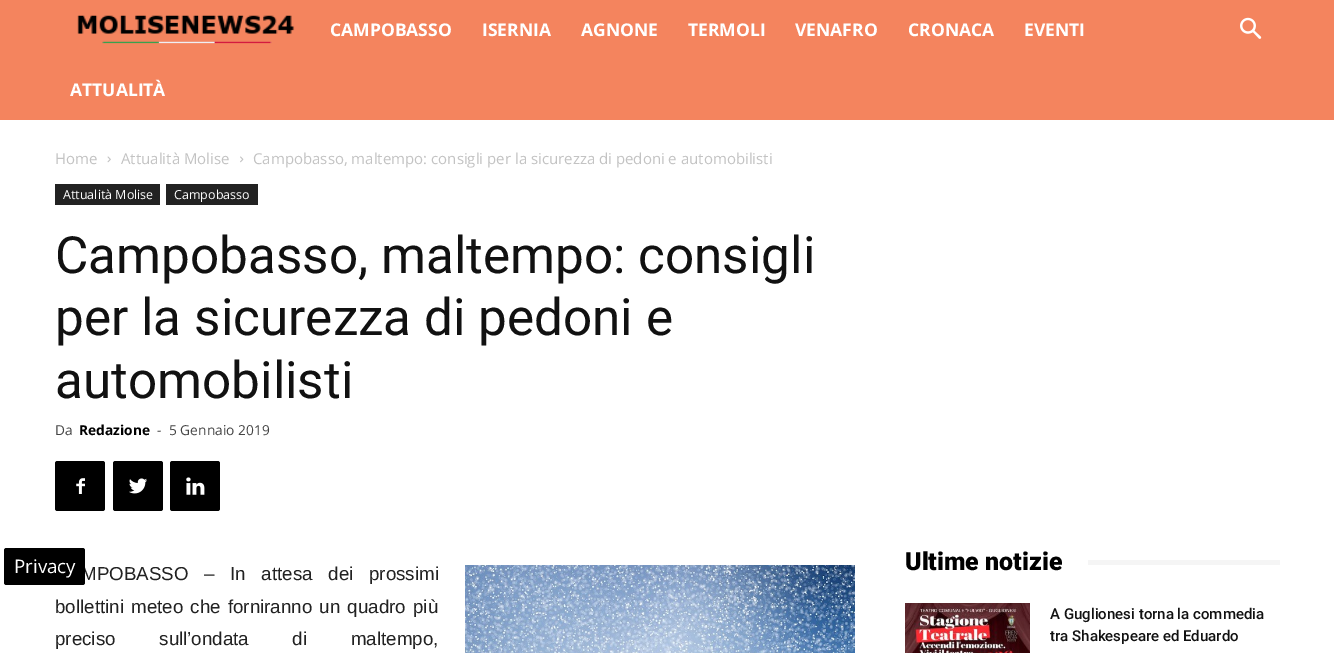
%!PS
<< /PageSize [1334 653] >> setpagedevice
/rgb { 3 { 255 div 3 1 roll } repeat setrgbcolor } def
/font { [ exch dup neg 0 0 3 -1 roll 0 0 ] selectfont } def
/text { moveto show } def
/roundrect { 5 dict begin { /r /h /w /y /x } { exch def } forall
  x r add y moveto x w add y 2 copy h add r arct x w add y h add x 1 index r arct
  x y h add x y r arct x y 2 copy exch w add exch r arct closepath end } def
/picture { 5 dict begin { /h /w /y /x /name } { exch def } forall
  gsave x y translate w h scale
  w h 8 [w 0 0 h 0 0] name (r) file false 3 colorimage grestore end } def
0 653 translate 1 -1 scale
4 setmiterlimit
255 255 255 rgb
0 0 1334 653 rectfill
244 132 94 rgb
0 0 1334 120 rectfill
(img_01.rgb) 77 15 218 29 picture
(img_02.rgb) 1240 17 22 22 picture
(img_03.rgb) 107 156 4 7 picture
(img_04.rgb) 240 156 4 7 picture
34 34 34 rgb
55 184 105 21 rectfill
166 184 92 21 rectfill
0 0 0 rgb
55 461 50 50 2.5 roundrect fill
(img_05.rgb) 76 478 9 16 picture
113 461 50 50 2.5 roundrect fill
(img_06.rgb) 129 478 18 16 picture
170 461 50 50 2.5 roundrect fill
(img_07.rgb) 186 477 19 18 picture
(img_08.rgb) 465 565 390 88 picture
245 245 245 rgb
1088 560 192 5 rectfill
(img_09.rgb) 905 603 125 50 picture
/OpenSans-Bold 17.5 font
255 255 255 rgb
(CAMPOBASSO) 330 36 text
(ISERNIA) 482 36 text
(AGNONE) 581 36 text
(TERMOLI) 688 36 text
(VENAFRO) 795 36 text
(CRONACA) 908 36 text
(EVENTI) 1024 36 text
(ATTUALITÀ) 70 96 text
/OpenSans-Regular 15 font
195 195 195 rgb
(Home) 55 164 text
(Attualità Molise) 121 164 text
(Campobasso, maltempo: consigli per la sicurezza di pedoni e automobilisti) 253 164 text
/OpenSans-Regular 12.5 font
255 255 255 rgb
(Attualità Molise) 63 199 text
(Campobasso) 174 199 text
/Roboto-Regular 51.25 font
17 17 17 rgb
(Campobasso, maltempo: consigli) 55 273 text
(per la sicurezza di pedoni e) 55 335 text
(automobilisti) 55 398 text
/OpenSans-Regular 13.75 font
68 68 68 rgb
(Da) 55 435 text
/OpenSans-Bold 13.75 font
0 0 0 rgb
(Redazione) 79 435 text
/OpenSans-Regular 13.75 font
68 68 68 rgb
(-) 157 435 text
(5 Gennaio 2019) 169 435 text
/LiberationSans-Regular 18.75 font
34 34 34 rgb
81 580 moveto 10.5 0 32 (MPOBASSO – In attesa dei prossimi) widthshow
0 0 0 rgb
4 548 81 37 2.5 roundrect fill
/OpenSans-Regular 18.75 font
255 255 255 rgb
(Privacy) 14 573 text
/LiberationSans-Regular 18.75 font
34 34 34 rgb
55 613 moveto 2 0 32 (bollettini meteo che forniranno un quadro più) widthshow
55 645 moveto 38.5 0 32 (preciso sull’ondata di maltempo,) widthshow
/Roboto-Black 25 font
0 0 0 rgb
(Ultime notizie) 905 570 text
/Roboto-Medium 15 font
17 17 17 rgb
(A Guglionesi torna la commedia) 1050 619 text
(tra Shakespeare ed Eduardo) 1050 641 text
showpage
